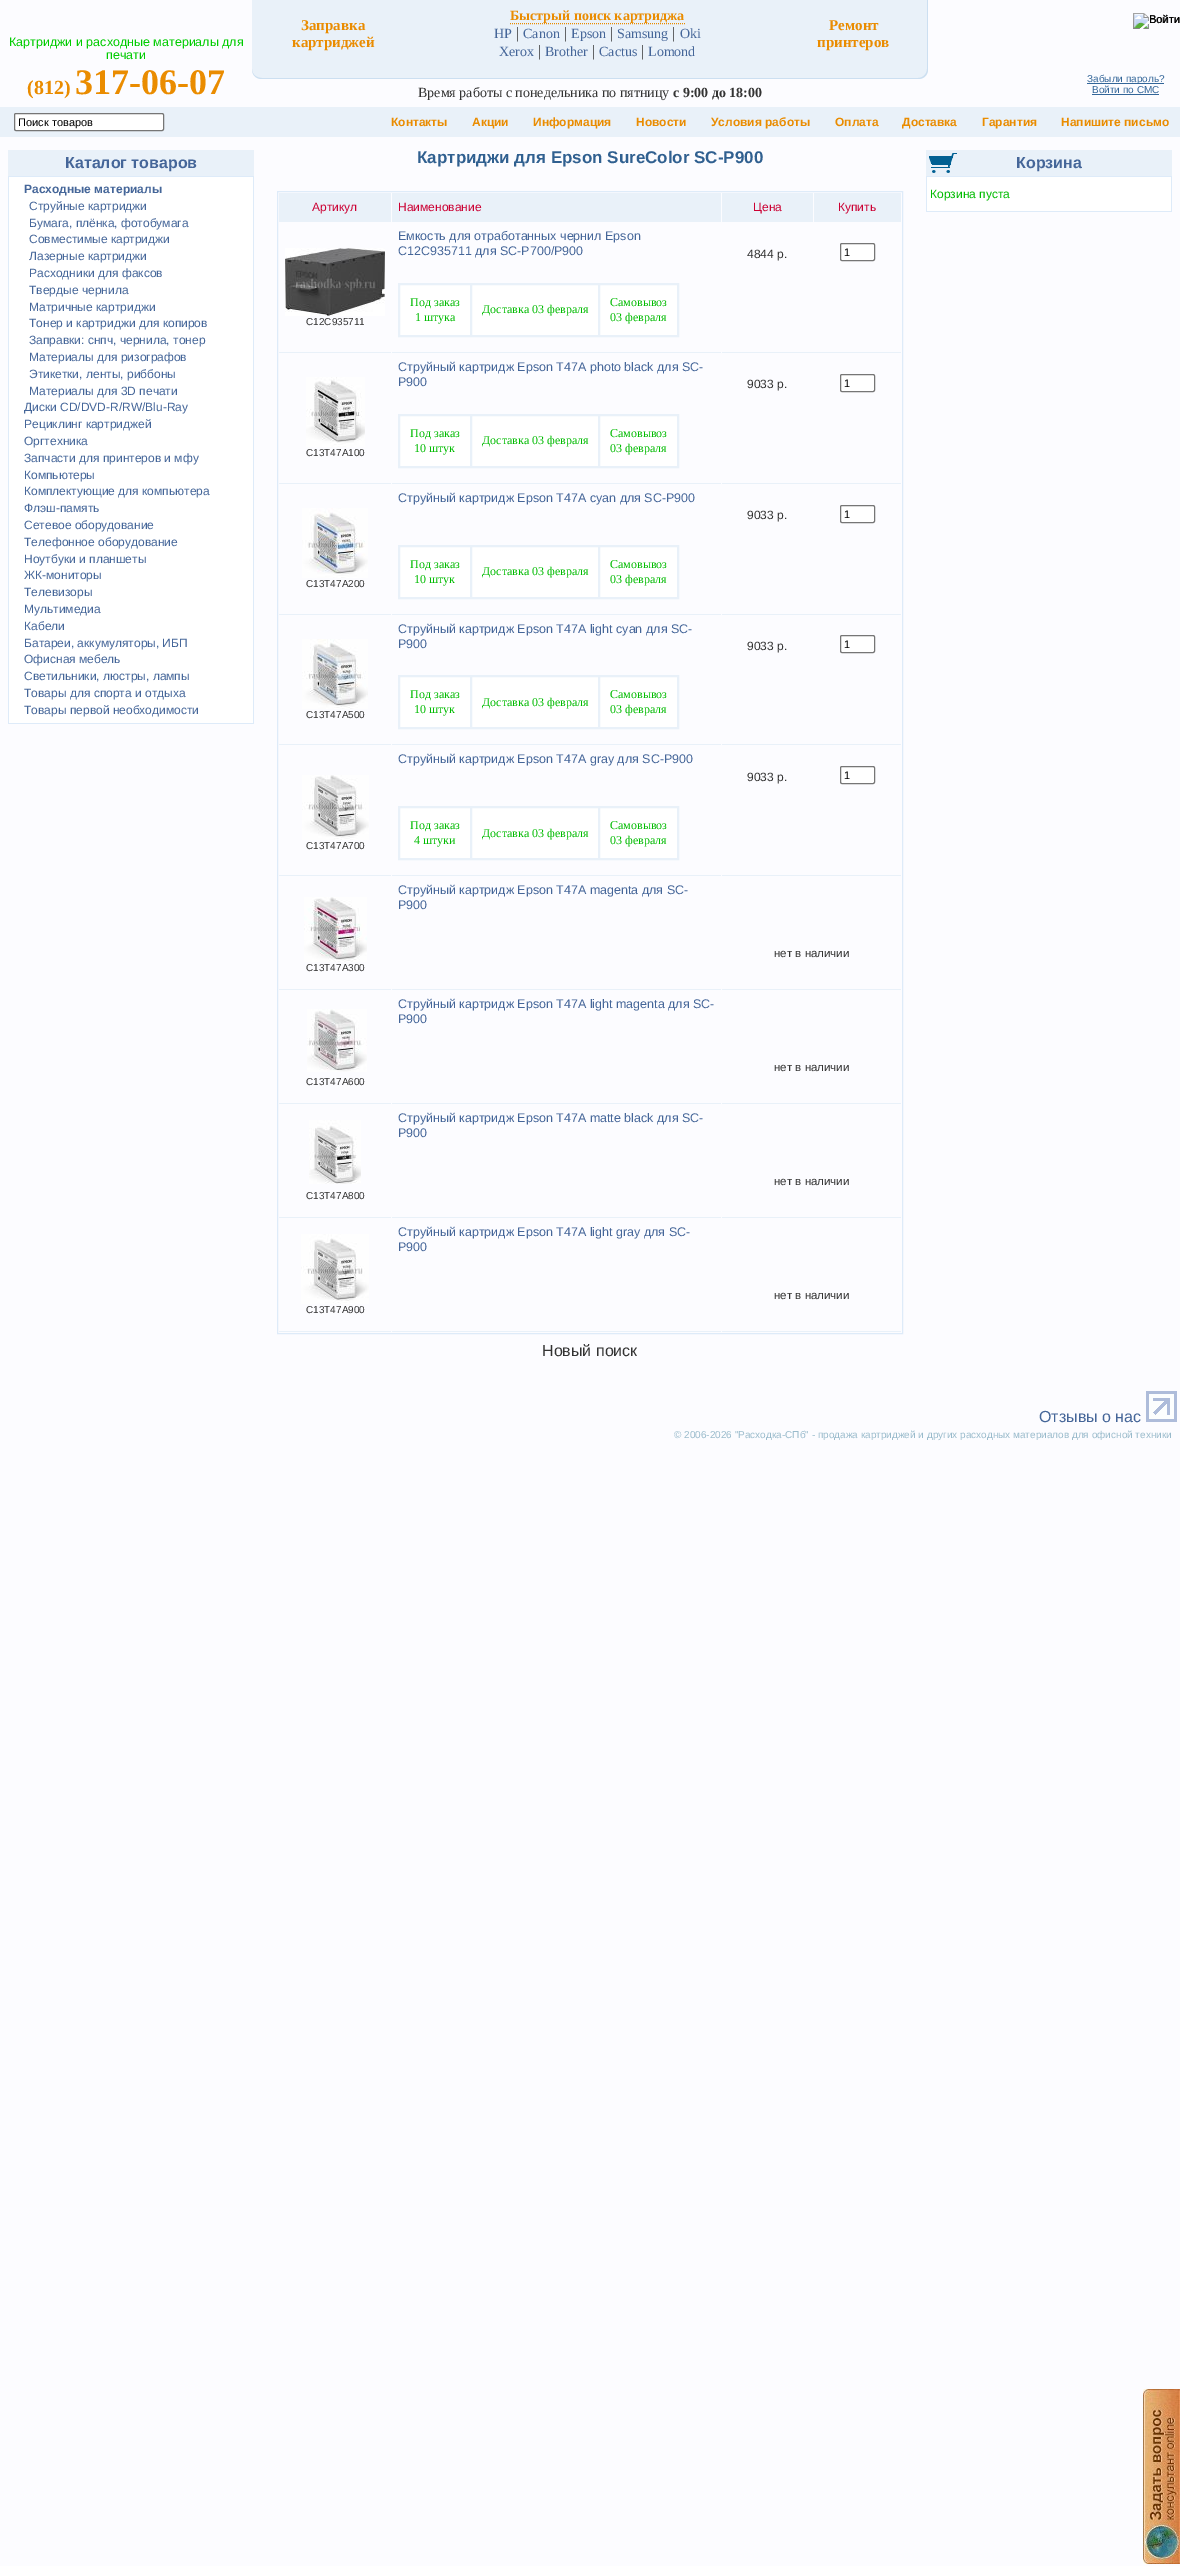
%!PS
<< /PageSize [1180 2566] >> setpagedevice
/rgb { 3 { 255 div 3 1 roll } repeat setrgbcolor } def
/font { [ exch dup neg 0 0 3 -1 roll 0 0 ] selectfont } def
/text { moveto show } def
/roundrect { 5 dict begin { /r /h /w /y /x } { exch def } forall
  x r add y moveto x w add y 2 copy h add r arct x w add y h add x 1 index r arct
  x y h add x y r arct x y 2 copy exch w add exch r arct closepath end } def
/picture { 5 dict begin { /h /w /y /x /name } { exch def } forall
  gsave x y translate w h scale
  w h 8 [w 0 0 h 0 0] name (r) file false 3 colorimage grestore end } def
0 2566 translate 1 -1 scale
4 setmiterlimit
252 252 255 rgb
0 0 1180 2566 rectfill
233 241 249 rgb
252 -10 676 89 10 roundrect fill
204 223 241 rgb
262 -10 moveto 656 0 rlineto 6 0 10 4 10 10 rcurveto 0 69 rlineto 0 6 -4 10 -10 10 rcurveto -656 0 rlineto -6 0 -10 -4 -10 -10 rcurveto 0 -69 rlineto 0 -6 4 -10 10 -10 rcurveto closepath 262 -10 moveto 656 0 rlineto 5 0 9 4 9 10 rcurveto 0 69 rlineto 0 5 -4 9 -9 9 rcurveto -656 0 rlineto -6 0 -10 -4 -10 -9 rcurveto 0 -69 rlineto 0 -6 4 -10 10 -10 rcurveto closepath eofill
234 140 0 rgb
[1 1] 0 setdash
510 23.5 moveto 175 0 rlineto stroke
(img_01.rgb) 1133 13 47 16 picture
51 102 153 rgb
1087 83 77 1 rectfill
1092 94 67 1 rectfill
233 241 249 rgb
0 107 1180 30 rectfill
255 255 255 rgb
14.5 113.5 149 17 1.5 roundrect gsave fill grestore
118 118 118 rgb
[] 0 setdash
stroke
233 241 249 rgb
8 150 246 26 rectfill
222 235 249 rgb
8 176 246 548 rectfill
255 255 255 rgb
9 177 244 546 rectfill
222 235 249 rgb
277.5 191.5 625 1142 rectstroke
233 241 249 rgb
279 193 112 29 rectfill
392 193 329 29 rectfill
722 193 91 29 rectfill
814 193 87 29 rectfill
255 255 255 rgb
840.5 243.5 34 17 1.5 roundrect gsave fill grestore
118 118 118 rgb
stroke
233 241 249 rgb
279 352 112 1 rectfill
(img_02.rgb) 285 248 100 68 picture
392 352 329 1 rectfill
255 255 255 rgb
400 285 277 50 rectfill
233 241 249 rgb
398.5 283.5 280 53 rectstroke
399.5 284.5 71 51 rectstroke
471.5 284.5 127 51 rectstroke
599.5 284.5 78 51 rectstroke
722 352 179 1 rectfill
255 255 255 rgb
840.5 374.5 34 17 1.5 roundrect gsave fill grestore
118 118 118 rgb
stroke
233 241 249 rgb
279 483 112 1 rectfill
(img_03.rgb) 306 377 59 70 picture
392 483 329 1 rectfill
255 255 255 rgb
400 416 277 50 rectfill
233 241 249 rgb
398.5 414.5 280 53 rectstroke
399.5 415.5 71 51 rectstroke
471.5 415.5 127 51 rectstroke
599.5 415.5 78 51 rectstroke
722 483 179 1 rectfill
255 255 255 rgb
840.5 505.5 34 17 1.5 roundrect gsave fill grestore
118 118 118 rgb
stroke
233 241 249 rgb
279 614 112 1 rectfill
(img_04.rgb) 302 508 66 70 picture
392 614 329 1 rectfill
255 255 255 rgb
400 547 277 50 rectfill
233 241 249 rgb
398.5 545.5 280 53 rectstroke
399.5 546.5 71 51 rectstroke
471.5 546.5 127 51 rectstroke
599.5 546.5 78 51 rectstroke
722 614 179 1 rectfill
255 255 255 rgb
840.5 635.5 34 17 1.5 roundrect gsave fill grestore
118 118 118 rgb
stroke
233 241 249 rgb
279 744 112 1 rectfill
(img_05.rgb) 302 639 66 70 picture
392 744 329 1 rectfill
255 255 255 rgb
400 677 277 50 rectfill
233 241 249 rgb
398.5 675.5 280 53 rectstroke
399.5 676.5 71 51 rectstroke
471.5 676.5 127 51 rectstroke
599.5 676.5 78 51 rectstroke
722 744 179 1 rectfill
255 255 255 rgb
840.5 766.5 34 17 1.5 roundrect gsave fill grestore
118 118 118 rgb
stroke
233 241 249 rgb
279 875 112 1 rectfill
(img_06.rgb) 302 775 67 65 picture
392 875 329 1 rectfill
255 255 255 rgb
400 808 277 50 rectfill
233 241 249 rgb
398.5 806.5 280 53 rectstroke
399.5 807.5 71 51 rectstroke
471.5 807.5 127 51 rectstroke
599.5 807.5 78 51 rectstroke
722 875 179 1 rectfill
279 989 112 1 rectfill
(img_07.rgb) 304 897 63 65 picture
722 989 179 1 rectfill
392 989 329 1 rectfill
279 1103 112 1 rectfill
(img_08.rgb) 307 1009 60 63 picture
722 1103 179 1 rectfill
392 1103 329 1 rectfill
279 1217 112 1 rectfill
(img_09.rgb) 309 1120 52 64 picture
722 1217 179 1 rectfill
392 1217 329 1 rectfill
279 1331 112 1 rectfill
(img_10.rgb) 301 1234 68 70 picture
722 1331 179 1 rectfill
392 1331 329 1 rectfill
926 150 246 26 rectfill
(img_11.rgb) 929 153 28 20 picture
222 235 249 rgb
926 176 246 36 rectfill
255 255 255 rgb
927 177 244 34 rectfill
(img_12.rgb) 1146 1391 31 31 picture
(img_13.rgb) 1143 2389 37 175 picture
/LiberationSans-Regular 12.5 font
0 204 0 rgb
(Картриджи и расходные материалы для) 9 46 text
(печати) 106 59 text
/LiberationSerif-Bold 20 font
234 140 0 rgb
(\(812\)) 27 94 text
/LiberationSerif-Bold 36 font
(317-06-07) 75 94 text
/LiberationSerif-Bold 15 font
(Заправка) 301 30 text
(картриджей) 292 47 text
/LiberationSerif-Bold 14 font
(Быстрый поиск картриджа) 510 20 text
/LiberationSerif-Regular 14 font
69 102 153 rgb
(HP) 494 38 text
/LiberationSerif-Regular 16 font
51 51 51 rgb
(|) 516 38 text
/LiberationSerif-Regular 14 font
69 102 153 rgb
(Canon) 523 38 text
/LiberationSerif-Regular 16 font
51 51 51 rgb
(|) 564 38 text
/LiberationSerif-Regular 14 font
69 102 153 rgb
(Epson) 571 38 text
/LiberationSerif-Regular 16 font
51 51 51 rgb
(|) 610 38 text
/LiberationSerif-Regular 14 font
69 102 153 rgb
(Samsung) 617 38 text
/LiberationSerif-Regular 16 font
51 51 51 rgb
(|) 672 38 text
/LiberationSerif-Regular 14 font
69 102 153 rgb
(Oki) 680 38 text
(Xerox) 499 56 text
/LiberationSerif-Regular 16 font
51 51 51 rgb
(|) 538 56 text
/LiberationSerif-Regular 14 font
69 102 153 rgb
(Brother) 545 56 text
/LiberationSerif-Regular 16 font
51 51 51 rgb
(|) 592 56 text
/LiberationSerif-Regular 14 font
69 102 153 rgb
(Cactus) 599 56 text
/LiberationSerif-Regular 16 font
51 51 51 rgb
(|) 641 56 text
/LiberationSerif-Regular 14 font
69 102 153 rgb
(Lomond) 648 56 text
/LiberationSerif-Bold 15 font
234 140 0 rgb
(Ремонт) 829 30 text
(принтеров) 817 47 text
/LiberationSerif-Regular 14 font
51 51 51 rgb
(Время работы с понедельника по пятницу) 418 97 text
/LiberationSerif-Bold 14 font
(с 9:00 до 18:00) 673 97 text
/LiberationSans-Regular 11 font
0 0 0 rgb
(Войти) 1149 23 text
/LiberationSans-Regular 10 font
51 102 153 rgb
(Забыли пароль?) 1087 82 text
(Войти по СМС) 1092 93 text
/LiberationSans-Regular 11 font
0 0 0 rgb
(Поиск товаров) 18 126 text
/LiberationSans-Bold 12 font
234 140 0 rgb
(Контакты) 391 126 text
(Акции) 472 126 text
(Информация) 533 126 text
(Новости) 636 126 text
(Условия работы) 711 126 text
(Оплата) 835 126 text
(Доставка) 902 126 text
(Гарантия) 982 126 text
(Напишите письмо) 1061 126 text
/LiberationSans-Bold 16 font
69 102 153 rgb
(Каталог товаров) 65 168 text
/LiberationSans-Bold 12 font
(Расходные материалы) 24 193 text
/LiberationSans-Regular 12 font
(Струйные картриджи) 29 210 text
(Бумага, плёнка, фотобумага) 29 227 text
(Совместимые картриджи) 29 243 text
(Лазерные картриджи) 29 260 text
(Расходники для факсов) 29 277 text
(Твердые чернила) 29 294 text
(Матричные картриджи) 29 311 text
(Тонер и картриджи для копиров) 29 327 text
(Заправки: снпч, чернила, тонер) 29 344 text
(Материалы для ризографов) 29 361 text
(Этикетки, ленты, риббоны) 29 378 text
(Материалы для 3D печати) 29 395 text
(Диски CD/DVD-R/RW/Blu-Ray) 24 411 text
(Рециклинг картриджей) 24 428 text
(Оргтехника) 24 445 text
(Запчасти для принтеров и мфу) 24 462 text
(Компьютеры) 24 479 text
(Комплектующие для компьютера) 24 495 text
(Флэш-память) 24 512 text
(Сетевое оборудование) 24 529 text
(Телефонное оборудование) 24 546 text
(Ноутбуки и планшеты) 24 563 text
(ЖК-мониторы) 24 579 text
(Телевизоры) 24 596 text
(Мультимедиа) 24 613 text
(Кабели) 24 630 text
(Батареи, аккумуляторы, ИБП) 24 647 text
(Офисная мебель) 24 663 text
(Светильники, люстры, лампы) 24 680 text
(Товары для спорта и отдыха) 24 697 text
(Товары первой необходимости) 24 714 text
/LiberationSans-Bold 17 font
48 96 144 rgb
(Картриджи для Epson SureColor SC-P900) 417 163 text
/LiberationSans-Regular 12 font
204 0 51 rgb
(Артикул) 312 211 text
(Наименование) 398 211 text
(Цена) 753 211 text
(Купить) 838 211 text
/LiberationSans-Regular 12.5 font
69 102 153 rgb
(Емкость для отработанных чернил Epson) 398 240 text
(C12C935711 для SC-P700/P900) 398 255 text
/LiberationSans-Regular 12 font
51 51 51 rgb
(4844 р.) 747 258 text
/LiberationSans-Regular 11 font
0 0 0 rgb
(1) 844 256 text
/LiberationSans-Regular 10 font
51 51 51 rgb
(C12C935711) 306 325 text
/LiberationSerif-Regular 12 font
0 187 0 rgb
(Под заказ) 410 306 text
(1 штука) 415 321 text
(Доставка 03 февраля) 482 313 text
(Самовывоз) 610 306 text
(03 февраля) 610 321 text
/LiberationSans-Regular 12.5 font
69 102 153 rgb
(Струйный картридж Epson T47A photo black для SC-) 398 371 text
(P900) 398 386 text
/LiberationSans-Regular 12 font
51 51 51 rgb
(9033 р.) 747 388 text
/LiberationSans-Regular 11 font
0 0 0 rgb
(1) 844 387 text
/LiberationSans-Regular 10 font
51 51 51 rgb
(C13T47A100) 306 456 text
/LiberationSerif-Regular 12 font
0 187 0 rgb
(Под заказ) 410 437 text
(10 штук) 414 452 text
(Доставка 03 февраля) 482 444 text
(Самовывоз) 610 437 text
(03 февраля) 610 452 text
/LiberationSans-Regular 12.5 font
69 102 153 rgb
(Струйный картридж Epson T47A cyan для SC-P900) 398 502 text
/LiberationSans-Regular 12 font
51 51 51 rgb
(9033 р.) 747 519 text
/LiberationSans-Regular 11 font
0 0 0 rgb
(1) 844 518 text
/LiberationSans-Regular 10 font
51 51 51 rgb
(C13T47A200) 306 587 text
/LiberationSerif-Regular 12 font
0 187 0 rgb
(Под заказ) 410 568 text
(10 штук) 414 583 text
(Доставка 03 февраля) 482 575 text
(Самовывоз) 610 568 text
(03 февраля) 610 583 text
/LiberationSans-Regular 12.5 font
69 102 153 rgb
(Струйный картридж Epson T47A light cyan для SC-) 398 633 text
(P900) 398 648 text
/LiberationSans-Regular 12 font
51 51 51 rgb
(9033 р.) 747 650 text
/LiberationSans-Regular 11 font
0 0 0 rgb
(1) 844 648 text
/LiberationSans-Regular 10 font
51 51 51 rgb
(C13T47A500) 306 718 text
/LiberationSerif-Regular 12 font
0 187 0 rgb
(Под заказ) 410 698 text
(10 штук) 414 713 text
(Доставка 03 февраля) 482 706 text
(Самовывоз) 610 698 text
(03 февраля) 610 713 text
/LiberationSans-Regular 12.5 font
69 102 153 rgb
(Струйный картридж Epson T47A gray для SC-P900) 398 763 text
/LiberationSans-Regular 12 font
51 51 51 rgb
(9033 р.) 747 781 text
/LiberationSans-Regular 11 font
0 0 0 rgb
(1) 844 779 text
/LiberationSans-Regular 10 font
51 51 51 rgb
(C13T47A700) 306 849 text
/LiberationSerif-Regular 12 font
0 187 0 rgb
(Под заказ) 410 829 text
(4 штуки) 414 844 text
(Доставка 03 февраля) 482 837 text
(Самовывоз) 610 829 text
(03 февраля) 610 844 text
/LiberationSans-Regular 12.5 font
69 102 153 rgb
(Струйный картридж Epson T47A magenta для SC-) 398 894 text
(P900) 398 909 text
/LiberationSans-Regular 10 font
51 51 51 rgb
(C13T47A300) 306 971 text
/LiberationSans-Regular 11.5 font
(нет в наличии) 774 957 text
/LiberationSans-Regular 12.5 font
69 102 153 rgb
(Струйный картридж Epson T47A light magenta для SC-) 398 1008 text
(P900) 398 1023 text
/LiberationSans-Regular 10 font
51 51 51 rgb
(C13T47A600) 306 1085 text
/LiberationSans-Regular 11.5 font
(нет в наличии) 774 1071 text
/LiberationSans-Regular 12.5 font
69 102 153 rgb
(Струйный картридж Epson T47A matte black для SC-) 398 1122 text
(P900) 398 1137 text
/LiberationSans-Regular 10 font
51 51 51 rgb
(C13T47A800) 306 1199 text
/LiberationSans-Regular 11.5 font
(нет в наличии) 774 1185 text
/LiberationSans-Regular 12.5 font
69 102 153 rgb
(Струйный картридж Epson T47A light gray для SC-) 398 1236 text
(P900) 398 1251 text
/LiberationSans-Regular 10 font
51 51 51 rgb
(C13T47A900) 306 1313 text
/LiberationSans-Regular 11.5 font
(нет в наличии) 774 1299 text
/LiberationSans-Regular 16 font
(Новый поиск) 542 1356 text
/LiberationSans-Bold 16 font
69 102 153 rgb
(Корзина) 1016 168 text
/LiberationSans-Regular 12 font
0 187 0 rgb
(Корзина пуста) 930 198 text
/LiberationSans-Regular 16 font
69 102 153 rgb
(Отзывы о нас) 1039 1422 text
/LiberationSans-Regular 10 font
153 187 204 rgb
(© 2006-2026 "Расходка-СПб" - продажа картриджей и других расходных материалов для офисной техники) 674 1438 text
showpage
